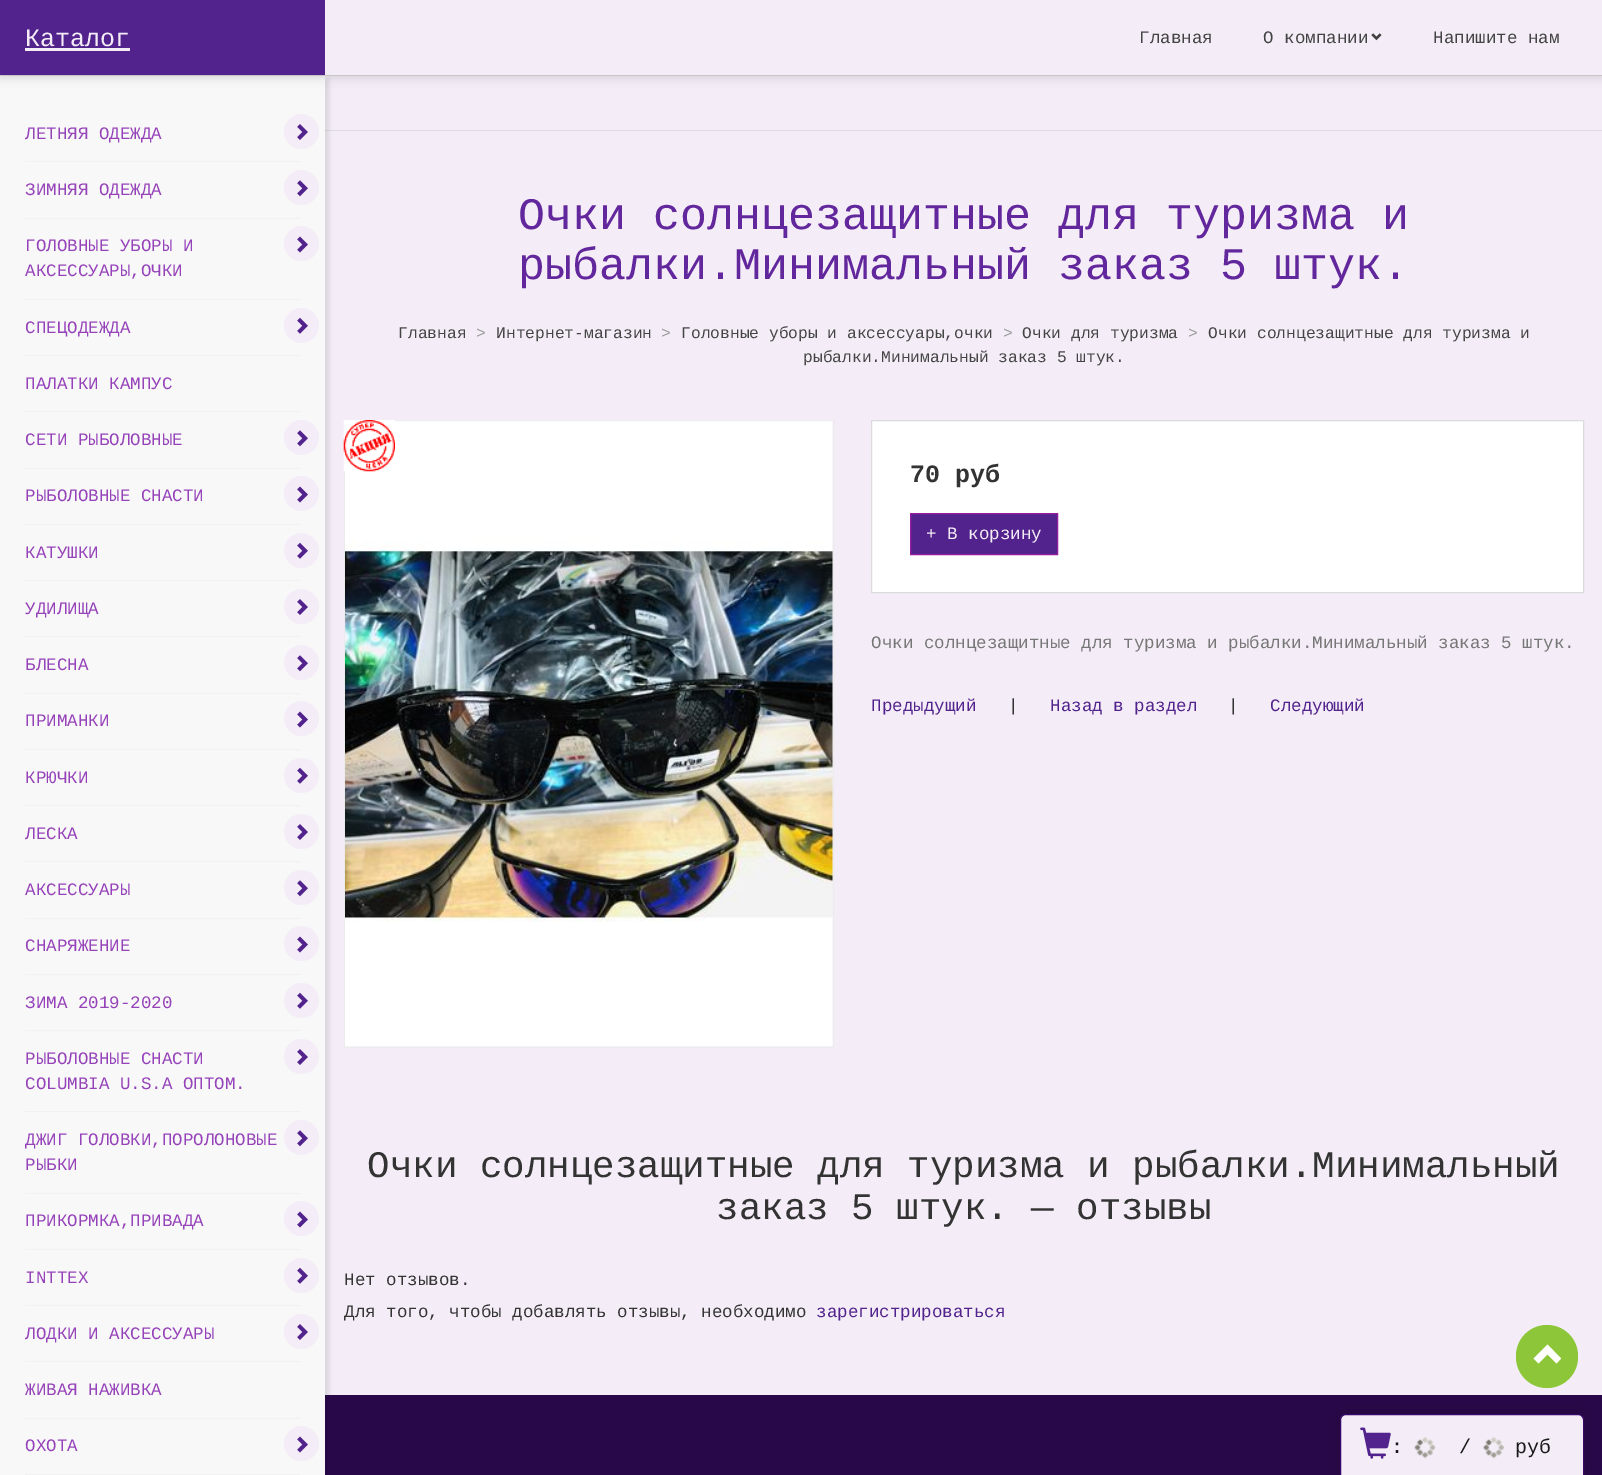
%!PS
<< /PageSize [1602 1475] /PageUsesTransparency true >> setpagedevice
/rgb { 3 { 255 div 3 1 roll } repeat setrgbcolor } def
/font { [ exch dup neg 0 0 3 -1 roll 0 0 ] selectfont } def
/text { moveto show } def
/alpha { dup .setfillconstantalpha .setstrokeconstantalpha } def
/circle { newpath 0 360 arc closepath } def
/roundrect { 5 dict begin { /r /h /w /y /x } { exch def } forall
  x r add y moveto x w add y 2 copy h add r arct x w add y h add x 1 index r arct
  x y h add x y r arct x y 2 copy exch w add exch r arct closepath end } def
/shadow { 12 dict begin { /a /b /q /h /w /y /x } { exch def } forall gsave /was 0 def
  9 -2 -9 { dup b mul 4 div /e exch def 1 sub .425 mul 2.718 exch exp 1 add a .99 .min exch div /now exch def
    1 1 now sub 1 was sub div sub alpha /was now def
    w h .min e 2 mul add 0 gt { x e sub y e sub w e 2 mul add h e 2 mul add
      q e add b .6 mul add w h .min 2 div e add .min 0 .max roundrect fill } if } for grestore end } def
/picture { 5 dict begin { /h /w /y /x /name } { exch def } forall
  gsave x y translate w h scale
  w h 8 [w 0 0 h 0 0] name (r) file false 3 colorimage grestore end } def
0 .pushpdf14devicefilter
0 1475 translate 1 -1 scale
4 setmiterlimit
244 237 247 rgb
0 0 1602 1475 rectfill
221 221 221 rgb
325 130 1277 1 rectfill
41 8 74 rgb
325 1395 1277 80 rectfill
0 0 0 rgb
4 79 325 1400 0 2 0.1 shadow
221 221 221 rgb
0 75 1602 1 rectfill
248 248 248 rgb
0 76 325 1399 rectfill
0 0 0 rgb
0 0 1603 75 0 6 0.2 shadow
244 237 247 rgb
325 0 1277 75 rectfill
82 35 140 rgb
0 0 325 75 rectfill
244 237 247 rgb
25 48 105 3 rectfill
(img_01.rgb) 1371 33 11 8 picture
241 241 241 rgb
25 161 275 1 rectfill
244 237 247 rgb
301.5 131.5 17.5 circle fill
(img_02.rgb) 297 124 11 16 picture
241 241 241 rgb
25 218 275 1 rectfill
244 237 247 rgb
301.5 187.5 17.5 circle fill
(img_03.rgb) 297 180 11 17 picture
241 241 241 rgb
25 299 275 1 rectfill
244 237 247 rgb
301.5 243.5 17.5 circle fill
(img_04.rgb) 297 236 11 17 picture
241 241 241 rgb
25 355 275 1 rectfill
244 237 247 rgb
301.5 325.5 17.5 circle fill
(img_05.rgb) 297 317 11 17 picture
241 241 241 rgb
25 411 275 1 rectfill
25 468 275 1 rectfill
244 237 247 rgb
301.5 437.5 17.5 circle fill
(img_03.rgb) 297 430 11 17 picture
241 241 241 rgb
25 524 275 1 rectfill
244 237 247 rgb
301.5 493.5 17.5 circle fill
(img_04.rgb) 297 486 11 17 picture
241 241 241 rgb
25 580 275 1 rectfill
244 237 247 rgb
301.5 550.5 17.5 circle fill
(img_05.rgb) 297 542 11 17 picture
241 241 241 rgb
25 636 275 1 rectfill
244 237 247 rgb
301.5 606.5 17.5 circle fill
(img_02.rgb) 297 599 11 16 picture
241 241 241 rgb
25 693 275 1 rectfill
244 237 247 rgb
301.5 662.5 17.5 circle fill
(img_03.rgb) 297 655 11 17 picture
241 241 241 rgb
25 749 275 1 rectfill
244 237 247 rgb
301.5 718.5 17.5 circle fill
(img_04.rgb) 297 711 11 17 picture
241 241 241 rgb
25 805 275 1 rectfill
244 237 247 rgb
301.5 775.5 17.5 circle fill
(img_05.rgb) 297 767 11 17 picture
241 241 241 rgb
25 861 275 1 rectfill
244 237 247 rgb
301.5 831.5 17.5 circle fill
(img_02.rgb) 297 824 11 16 picture
241 241 241 rgb
25 918 275 1 rectfill
244 237 247 rgb
301.5 887.5 17.5 circle fill
(img_03.rgb) 297 880 11 17 picture
241 241 241 rgb
25 974 275 1 rectfill
244 237 247 rgb
301.5 943.5 17.5 circle fill
(img_04.rgb) 297 936 11 17 picture
241 241 241 rgb
25 1030 275 1 rectfill
244 237 247 rgb
301.5 1000.5 17.5 circle fill
(img_05.rgb) 297 992 11 17 picture
241 241 241 rgb
25 1111 275 1 rectfill
244 237 247 rgb
301.5 1056.5 17.5 circle fill
(img_02.rgb) 297 1049 11 16 picture
241 241 241 rgb
25 1193 275 1 rectfill
244 237 247 rgb
301.5 1137.5 17.5 circle fill
(img_03.rgb) 297 1130 11 17 picture
241 241 241 rgb
25 1249 275 1 rectfill
244 237 247 rgb
301.5 1218.5 17.5 circle fill
(img_04.rgb) 297 1211 11 17 picture
241 241 241 rgb
25 1305 275 1 rectfill
244 237 247 rgb
301.5 1275.5 17.5 circle fill
(img_05.rgb) 297 1267 11 17 picture
241 241 241 rgb
25 1361 275 1 rectfill
244 237 247 rgb
301.5 1331.5 17.5 circle fill
(img_02.rgb) 297 1324 11 16 picture
241 241 241 rgb
25 1418 275 1 rectfill
25 1474 275 1 rectfill
244 237 247 rgb
301.5 1443.5 17.5 circle fill
(img_04.rgb) 297 1436 11 17 picture
236 236 236 rgb
344.5 420.5 489 627 rectstroke
(img_07.rgb) 345 421 488 626 picture
(img_06.rgb) 343 420 52 52 picture
255 255 255 rgb
871.5 420.5 moveto 712 0 rlineto 0 172 rlineto -712 0 rlineto closepath gsave fill grestore
219 219 219 rgb
stroke
82 35 140 rgb
910.5 513.5 moveto 147 0 rlineto 0 41 rlineto -147 0 rlineto closepath gsave fill grestore
153 27 158 rgb
stroke
141 199 57 rgb
1516 1325 62 63 31 roundrect fill
255 255 255 rgb
1561 1358.5 moveto -4.5 5 rlineto -9 -9 rlineto -9 9 rlineto -5 -5 rlineto 14 -14 rlineto closepath fill
0 0 0 rgb
1340 1414 244 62 6 6 0.2 shadow
244 237 247 rgb
1346 1414.5 moveto 232 0 rlineto 3 0 5.5 2.5 5.5 5.5 rcurveto 0 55.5 rlineto -243 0 rlineto 0 -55.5 rlineto 0 -3 2.5 -5.5 5.5 -5.5 rcurveto closepath gsave fill grestore
57 9 105 rgb
stroke
(img_08.rgb) 1360 1427 31 32 picture
(img_09.rgb) 1414 1437 22 22 picture
(img_10.rgb) 1483 1437 21 22 picture
/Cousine-Regular 25 font
244 237 247 rgb
(Каталог) 25 46 text
/Cousine-Regular 17.5 font
68 68 68 rgb
(Главная) 1139 43 text
(О компании) 1263 43 text
(Напишите нам) 1433 43 text
150 67 186 rgb
(ЛЕТНЯЯ ОДЕЖДА) 25 139 text
(ЗИМНЯЯ ОДЕЖДА) 25 195 text
(ГОЛОВНЫЕ УБОРЫ И) 25 251 text
(АКСЕССУАРЫ,ОЧКИ) 25 276 text
(СПЕЦОДЕЖДА) 25 333 text
(ПАЛАТКИ КАМПУС) 25 389 text
(СЕТИ РЫБОЛОВНЫЕ) 25 445 text
(РЫБОЛОВНЫЕ СНАСТИ) 25 501 text
(КАТУШКИ) 25 558 text
(УДИЛИЩА) 25 614 text
(БЛЕСНА) 25 670 text
(ПРИМАНКИ) 25 726 text
(КРЮЧКИ) 25 783 text
(ЛЕСКА) 25 839 text
(АКСЕССУАРЫ) 25 895 text
(СНАРЯЖЕНИЕ) 25 951 text
(ЗИМА 2019-2020) 25 1008 text
(РЫБОЛОВНЫЕ СНАСТИ) 25 1064 text
(COLUMBIA U.S.A ОПТОМ.) 25 1089 text
(ДЖИГ ГОЛОВКИ,ПОРОЛОНОВЫЕ) 25 1145 text
(РЫБКИ) 25 1170 text
(ПРИКОРМКА,ПРИВАДА) 25 1226 text
(INTTEX) 25 1283 text
(ЛОДКИ И АКСЕССУАРЫ) 25 1339 text
(ЖИВАЯ НАЖИВКА) 25 1395 text
(ОХОТА) 25 1451 text
/Cousine-Regular 45 font
98 39 156 rgb
(Очки солнцезащитные для туризма и) 518 229 text
(рыбалки.Минимальный заказ 5 штук.) 518 279 text
/Cousine-Regular 16.25 font
68 68 68 rgb
(Главная) 398 338 text
153 153 153 rgb
(>) 476 338 text
68 68 68 rgb
(Интернет-магазин) 496 338 text
153 153 153 rgb
(>) 661 338 text
68 68 68 rgb
(Головные уборы и аксессуары,очки) 681 338 text
153 153 153 rgb
(>) 1003 338 text
68 68 68 rgb
(Очки для туризма) 1022 338 text
153 153 153 rgb
(>) 1188 338 text
68 68 68 rgb
(Очки солнцезащитные для туризма и) 1208 338 text
(рыбалки.Минимальный заказ 5 штук.) 803 362 text
/Cousine-Bold 25 font
51 51 51 rgb
(70 руб) 910 482 text
/Cousine-Regular 17.5 font
244 237 247 rgb
(+ В корзину) 926 539 text
119 119 119 rgb
(Очки солнцезащитные для туризма и рыбалки.Минимальный заказ 5 штук.) 871 648 text
82 35 140 rgb
(Предыдущий) 871 711 text
51 51 51 rgb
(|) 1008 711 text
82 35 140 rgb
(Назад в раздел) 1050 711 text
51 51 51 rgb
(|) 1228 711 text
82 35 140 rgb
(Следующий) 1270 711 text
/Cousine-Regular 37.5 font
51 51 51 rgb
(Очки солнцезащитные для туризма и рыбалки.Минимальный) 367 1177 text
(заказ 5 штук. — отзывы) 716 1219 text
/Cousine-Regular 17.5 font
(Нет отзывов.) 344 1285 text
(Для того, чтобы добавлять отзывы, необходимо) 344 1317 text
82 35 140 rgb
(зарегистрироваться) 816 1317 text
/Cousine-Regular 20 font
25 25 25 rgb
(:) 1391 1453 text
(/) 1459 1453 text
(руб) 1515 1453 text
.poppdf14devicefilter showpage
